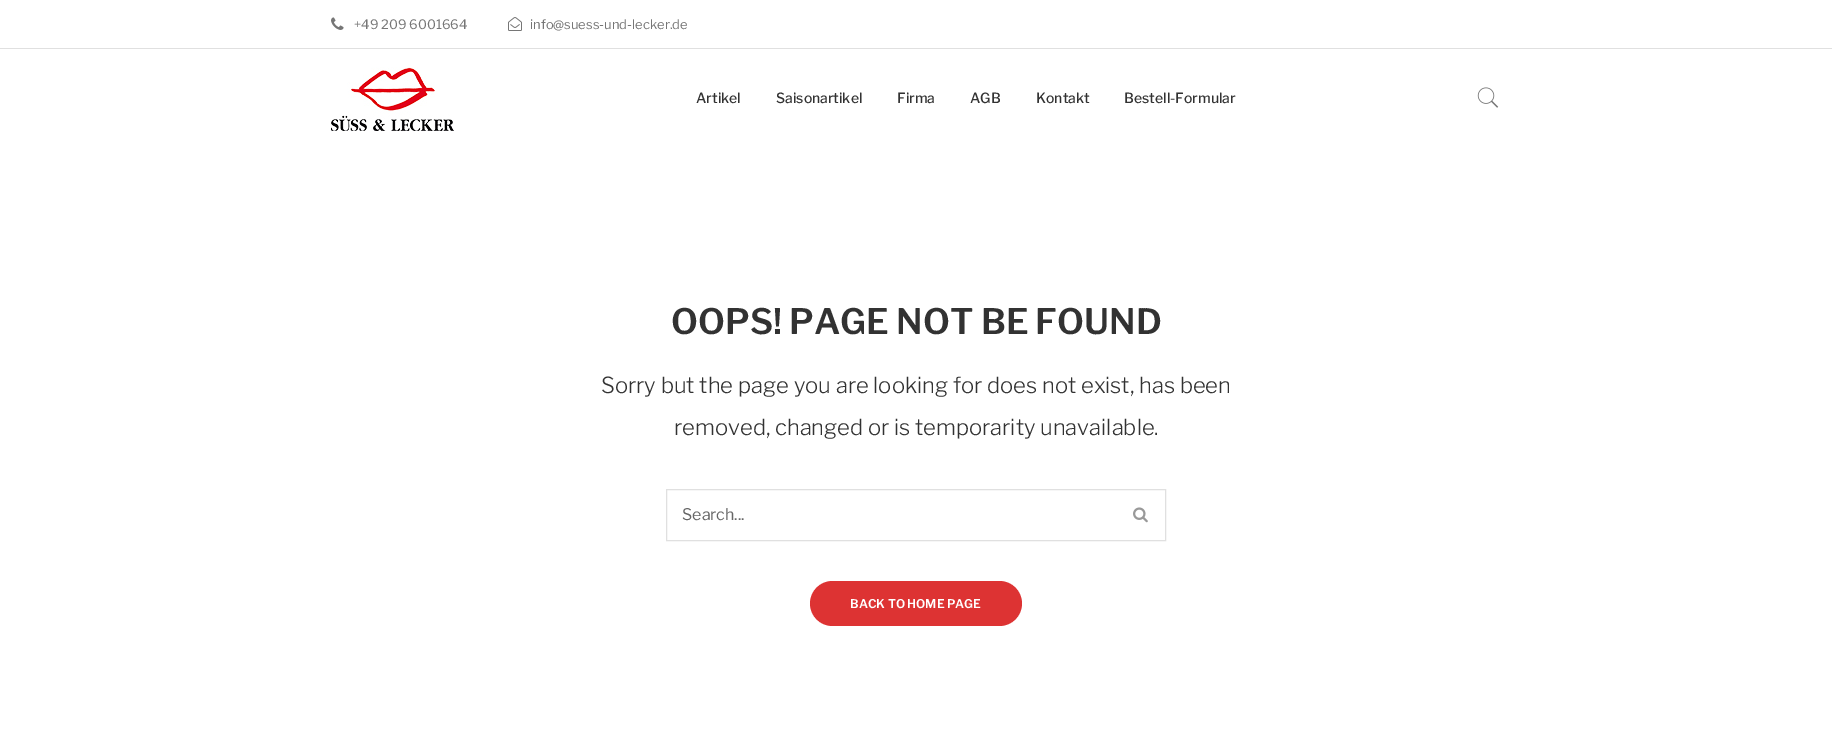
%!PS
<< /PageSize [1832 732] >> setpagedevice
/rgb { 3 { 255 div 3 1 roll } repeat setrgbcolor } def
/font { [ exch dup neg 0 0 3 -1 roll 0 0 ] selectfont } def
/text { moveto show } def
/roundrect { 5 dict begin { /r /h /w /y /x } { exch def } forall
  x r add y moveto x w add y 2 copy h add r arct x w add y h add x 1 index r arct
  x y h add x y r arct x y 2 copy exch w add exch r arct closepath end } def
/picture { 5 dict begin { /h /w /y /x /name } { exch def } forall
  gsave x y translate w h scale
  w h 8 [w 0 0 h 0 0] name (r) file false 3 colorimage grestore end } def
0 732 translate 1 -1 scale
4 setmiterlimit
255 255 255 rgb
0 0 1832 732 rectfill
224 224 224 rgb
0 48 1832 1 rectfill
(img_01.rgb) 331 17 13 13 picture
(img_02.rgb) 508 17 14 14 picture
(img_03.rgb) 331 67 123 64 picture
(img_04.rgb) 1477 87 22 21 picture
666.5 489.5 499 51 rectstroke
(img_05.rgb) 1133 507 15 16 picture
221 51 51 rgb
810 581 212 45 22.5 roundrect fill
/LibreFranklin-Regular 13 font
118 118 118 rgb
(+49 209 6001664) 354 29 text
(info@suess-und-lecker.de) 530 29 text
/LibreFranklin-Medium 14 font
50 50 50 rgb
(Artikel) 696 103 text
(Saisonartikel) 776 103 text
(Firma) 897 103 text
(AGB) 970 103 text
(Kontakt) 1036 103 text
(Bestell-Formular) 1124 103 text
/LibreFranklin-SemiBold 35 font
(OOPS! PAGE NOT BE FOUND) 671 334 text
/LibreFranklin-Light 22 font
(Sorry but the page you are looking for does not exist, has been) 601 393 text
(removed, changed or is temporarity unavailable.) 674 435 text
/LibreFranklin-Regular 16 font
102 102 102 rgb
(Search...) 682 520 text
/LibreFranklin-SemiBold 12 font
255 255 255 rgb
(BACK TO HOME PAGE) 850 608 text
showpage
